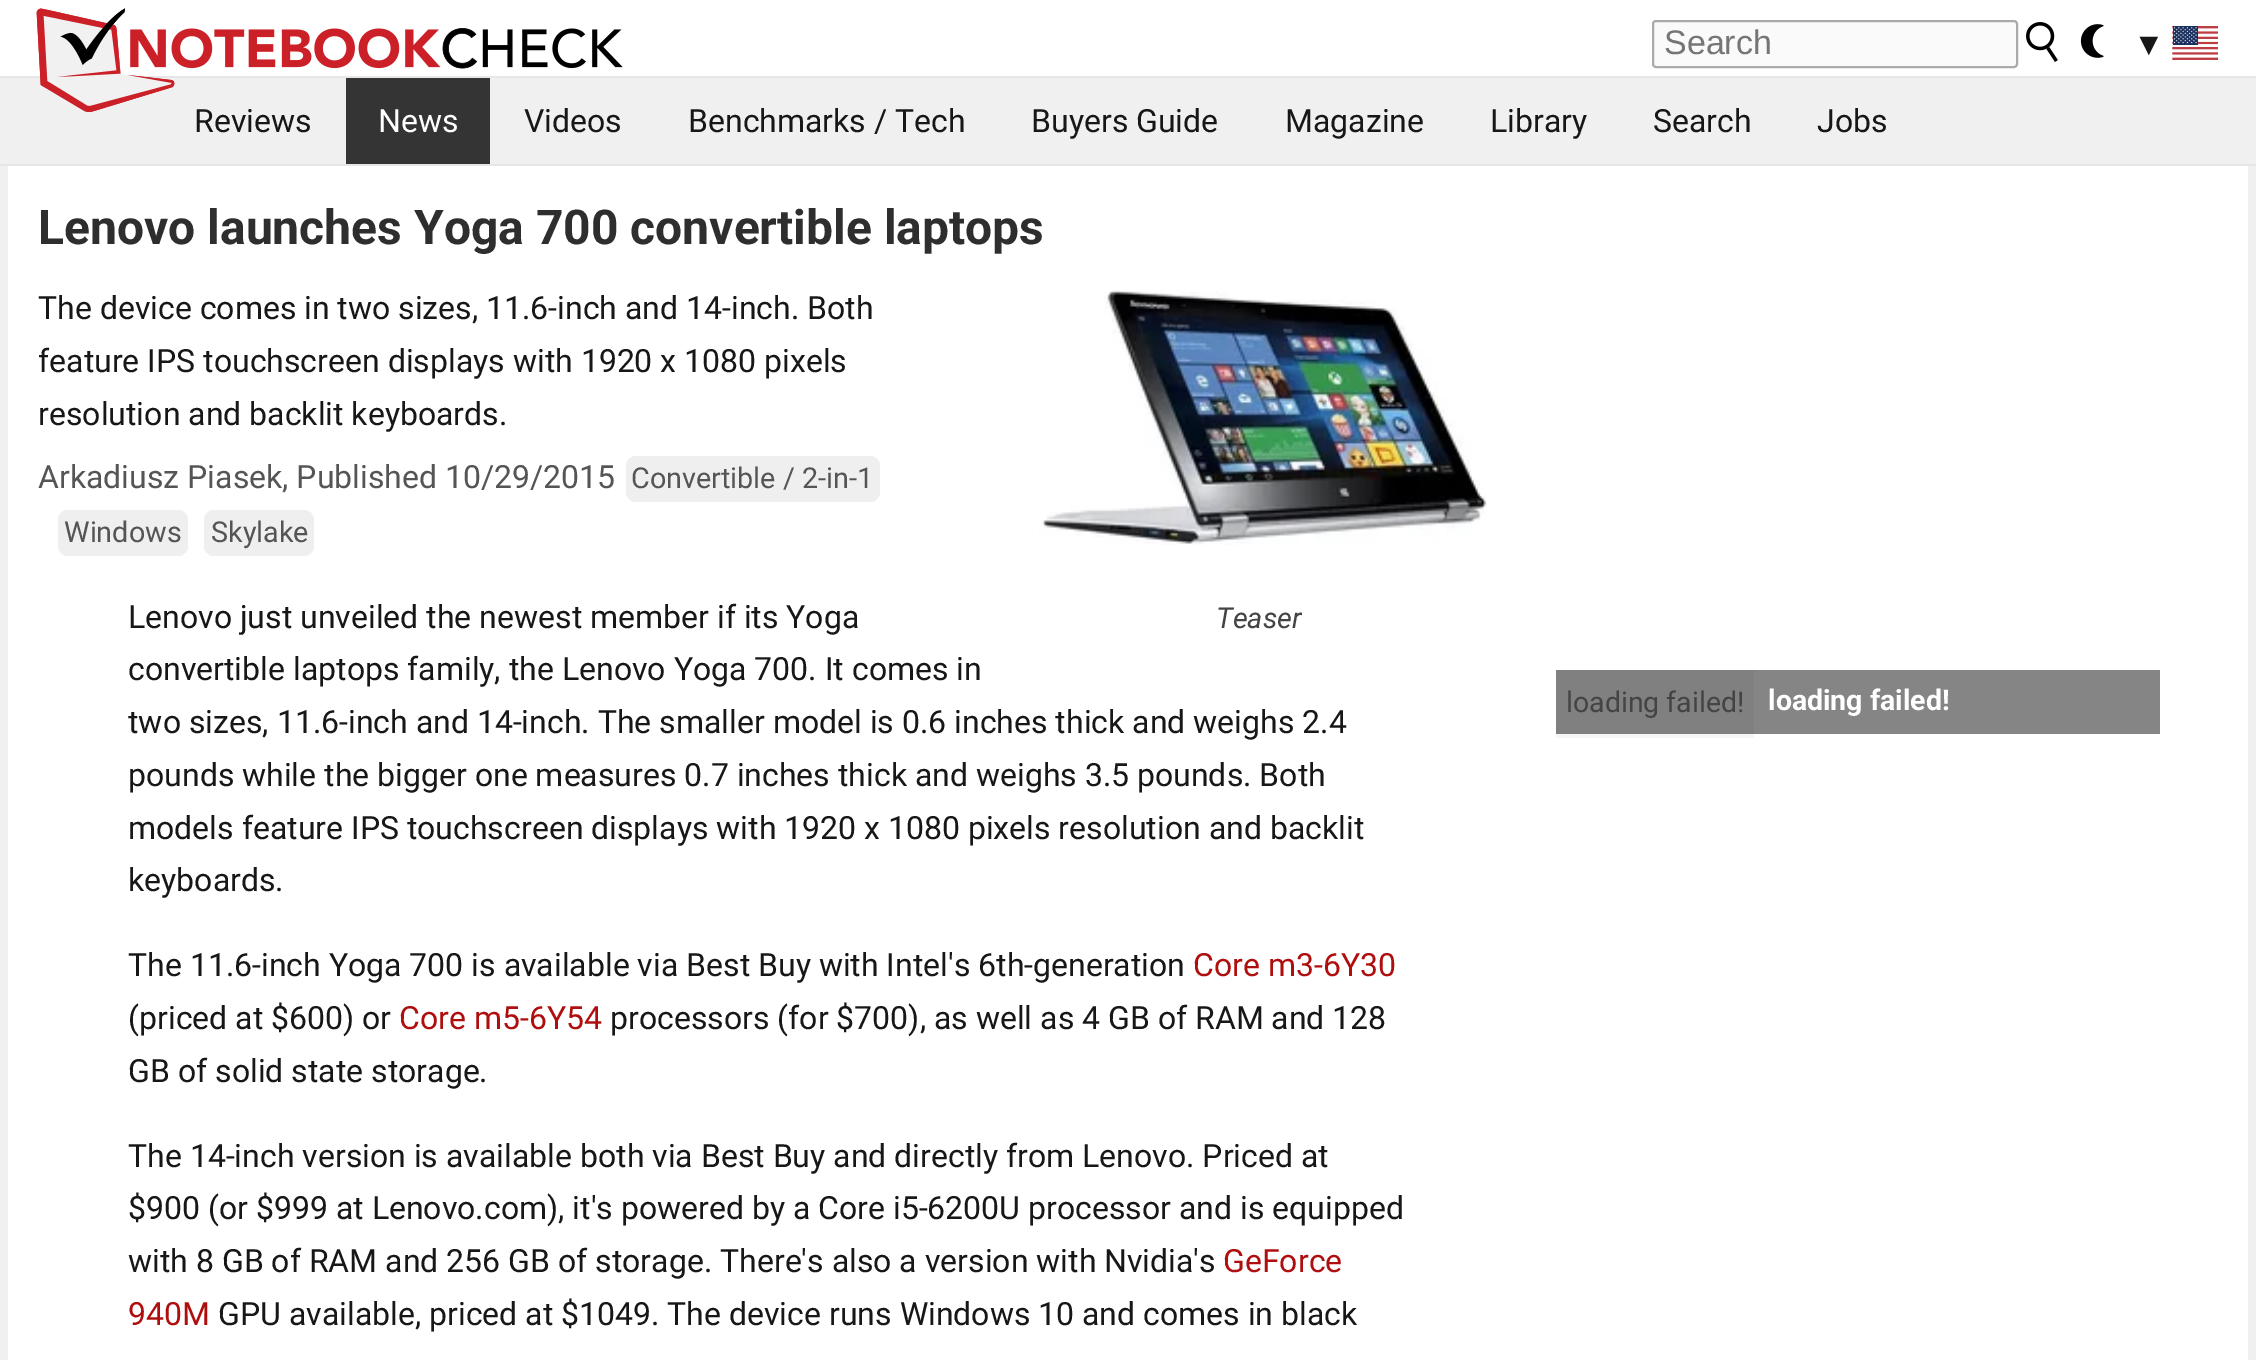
%!PS
<< /PageSize [2256 1360] /PageUsesTransparency true >> setpagedevice
/rgb { 3 { 255 div 3 1 roll } repeat setrgbcolor } def
/font { [ exch dup neg 0 0 3 -1 roll 0 0 ] selectfont } def
/text { moveto show } def
/alpha { dup .setfillconstantalpha .setstrokeconstantalpha } def
/roundrect { 5 dict begin { /r /h /w /y /x } { exch def } forall
  x r add y moveto x w add y 2 copy h add r arct x w add y h add x 1 index r arct
  x y h add x y r arct x y 2 copy exch w add exch r arct closepath end } def
/picture { 5 dict begin { /h /w /y /x /name } { exch def } forall
  gsave x y translate w h scale
  w h 8 [w 0 0 h 0 0] name (r) file false 3 colorimage grestore end } def
0 .pushpdf14devicefilter
0 1360 translate 1 -1 scale
4 setmiterlimit
240 240 240 rgb
0 0 2256 1360 rectfill
255 255 255 rgb
0 0 2256 164 rectfill
(img_01.rgb) 36 8 587 104 picture
0.06 alpha
0 0 0 rgb
0 76 2256 88 rectfill
0.04 alpha
0 76 2256 2 rectfill
1 alpha
(img_02.rgb) 36 8 138 104 picture
250 250 250 rgb
1653 21 364 46 3 roundrect gsave fill grestore
170 170 170 rgb
2 setlinewidth
stroke
(img_03.rgb) 2026 22 32 40 picture
(img_04.rgb) 2080 24 24 34 picture
(img_05.rgb) 2172 26 46 34 picture
230 230 230 rgb
0 164 2256 2 rectfill
52 52 52 rgb
346 78 144 86 rectfill
255 255 255 rgb
8 166 2240 1194 rectfill
245 245 245 rgb
1556 734 198 4 rectfill
239 239 239 rgb
626 456 254 46 10 roundrect fill
58 510 130 46 10 roundrect fill
204 510 110 46 10 roundrect fill
(img_06.rgb) 1039 290 448 255 picture
133 133 133 rgb
1754 670 406 64 rectfill
128 128 128 rgb
1556 670 198 64 rectfill
/LiberationSans-Regular 34 font
117 117 117 rgb
(Search) 1664 54 text
/LiberationSans-Regular 32 font
23 23 23 rgb
(▼) 2133 55 text
/Roboto-Regular 32 font
(Reviews) 194 132 text
255 255 255 rgb
(News) 378 132 text
23 23 23 rgb
(Videos) 524 132 text
(Benchmarks / Tech) 688 132 text
(Buyers Guide) 1031 132 text
(Magazine) 1285 132 text
(Library) 1490 132 text
(Search) 1653 132 text
(Jobs) 1817 132 text
/Roboto-Bold 48 font
46 46 46 rgb
(Lenovo launches Yoga 700 convertible laptops) 38 244 text
/Roboto-Regular 32 font
23 23 23 rgb
(The device comes in two sizes, 11.6-inch and 14-inch. Both) 38 319 text
(feature IPS touchscreen displays with 1920 x 1080 pixels) 38 372 text
(resolution and backlit keyboards.) 38 425 text
85 85 85 rgb
(Arkadiusz Piasek, Published 10/29/2015) 38 488 text
/Roboto-Regular 28.75 font
(Convertible / 2-in-1) 631 488 text
(Windows) 64 542 text
(Skylake) 211 542 text
/Roboto-Italic 28.75 font
68 68 68 rgb
(Teaser) 1216 628 text
/Roboto-Regular 32 font
23 23 23 rgb
(Lenovo just unveiled the newest member if its Yoga) 128 628 text
(convertible laptops family, the Lenovo Yoga 700. It comes in) 128 680 text
(two sizes, 11.6-inch and 14-inch. The smaller model is 0.6 inches thick and weighs 2.4) 128 733 text
(pounds while the bigger one measures 0.7 inches thick and weighs 3.5 pounds. Both) 128 786 text
(models feature IPS touchscreen displays with 1920 x 1080 pixels resolution and backlit) 128 839 text
(keyboards.) 128 891 text
(The 11.6-inch Yoga 700 is available via Best Buy with Intel's 6th-generation) 128 976 text
175 14 14 rgb
(Core m3-6Y30) 1193 976 text
23 23 23 rgb
(\(priced at $600\) or) 128 1029 text
175 14 14 rgb
(Core m5-6Y54) 399 1029 text
23 23 23 rgb
(processors \(for $700\), as well as 4 GB of RAM and 128) 610 1029 text
(GB of solid state storage.) 128 1082 text
/Roboto-Regular 28.5 font
68 68 68 rgb
(loading failed!) 1566 712 text
/Roboto-Bold 28.5 font
255 255 255 rgb
(loading failed!) 1768 710 text
/Roboto-Regular 32 font
23 23 23 rgb
(The 14-inch version is available both via Best Buy and directly from Lenovo. Priced at) 128 1167 text
($900 \(or $999 at Lenovo.com\), it's powered by a Core i5-6200U processor and is equipped) 128 1219 text
(with 8 GB of RAM and 256 GB of storage. There's also a version with Nvidia's) 128 1272 text
175 14 14 rgb
(GeForce) 1223 1272 text
(940M) 128 1325 text
23 23 23 rgb
(GPU available, priced at $1049. The device runs Windows 10 and comes in black) 218 1325 text
.poppdf14devicefilter showpage
